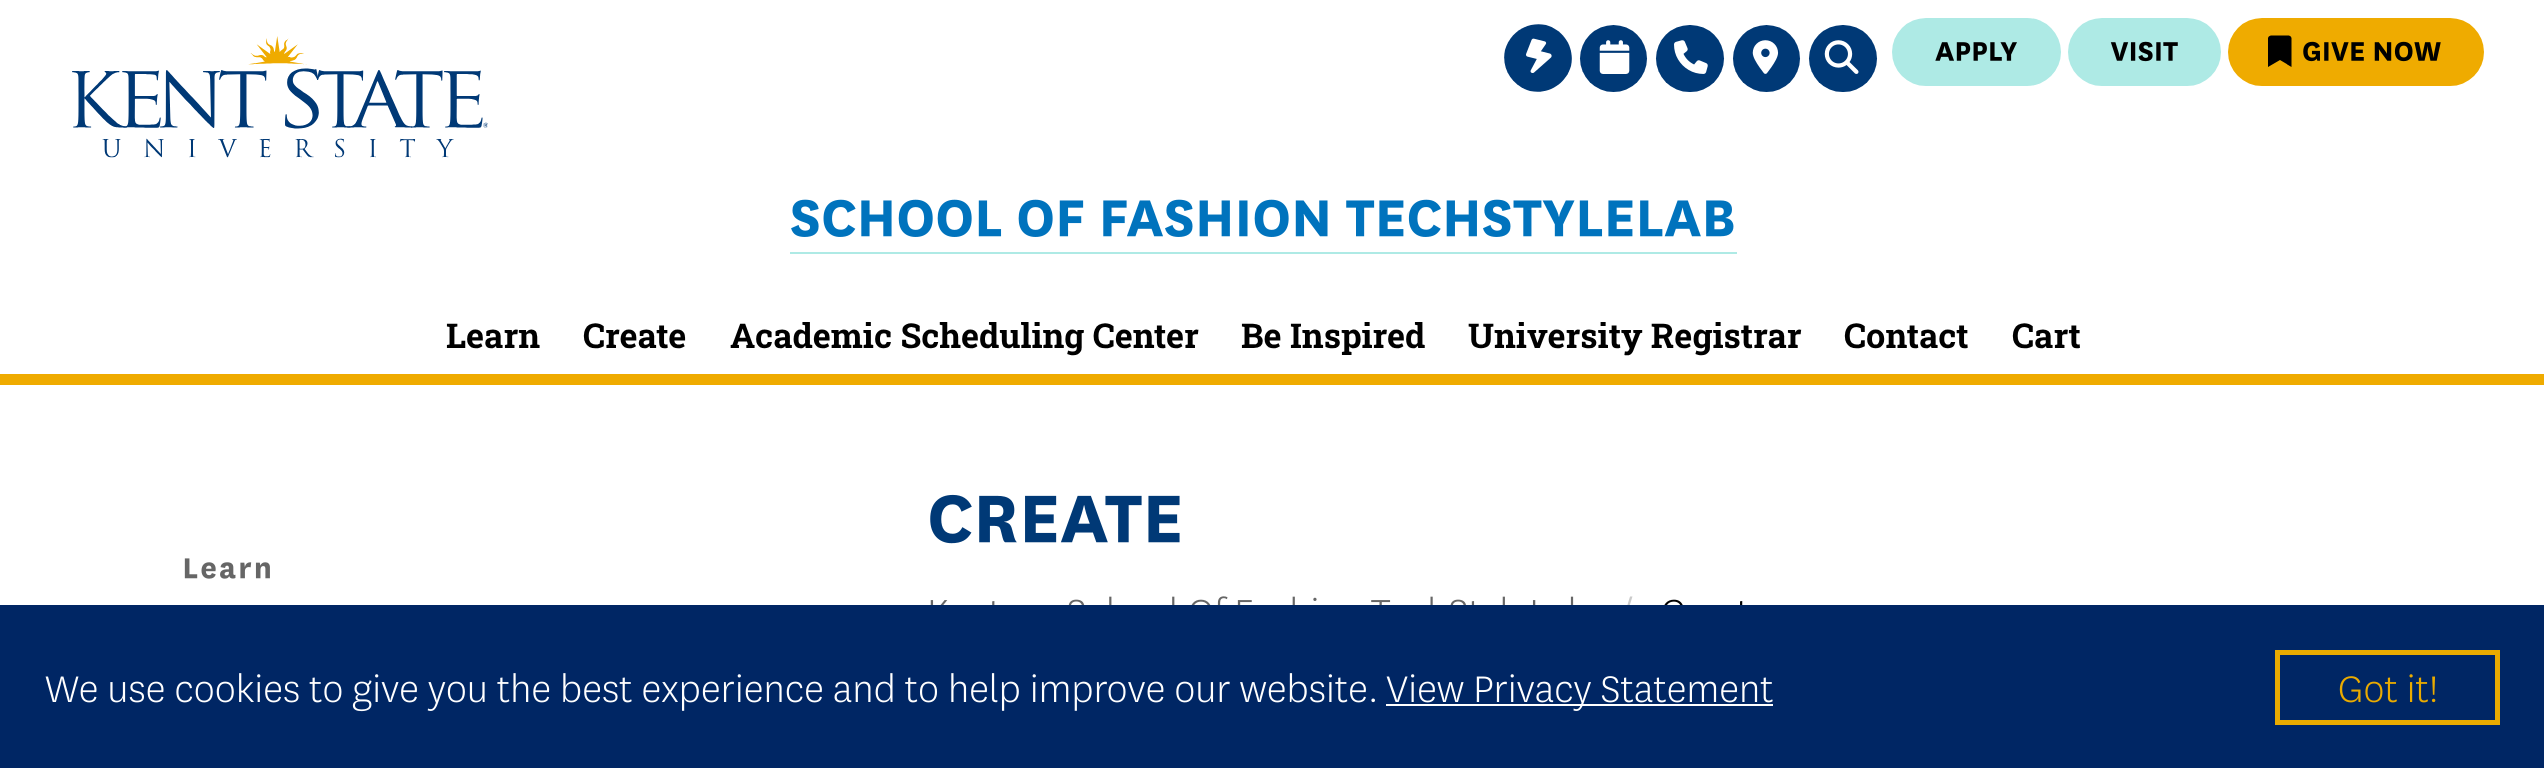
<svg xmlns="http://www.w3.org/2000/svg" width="2544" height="768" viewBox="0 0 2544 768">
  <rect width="100%" height="100%" fill="#ffffff"/>
  <rect x="0" y="374" width="2544" height="11" fill="#efab00"/>
  <image x="72" y="36" width="416" height="122" href="img1.png"/>
  <path d="M1546 25C1564 30 1575 48 1571 66C1566 84 1548 95 1530 91C1512 86 1501 68 1505 50C1510 32 1528 21 1546 25Z" fill="#003976"/>
  <image x="1526" y="38" width="26" height="35" href="img2.png"/>
  <circle cx="1613.5" cy="58.5" r="33.5" fill="#003976"/>
  <image x="1599" y="40" width="31" height="34" href="img3.png"/>
  <rect x="1656" y="25" width="68" height="67" rx="33.5" fill="#003976"/>
  <image x="1674" y="40" width="34" height="34" href="img4.png"/>
  <circle cx="1766.5" cy="58.5" r="33.5" fill="#003976"/>
  <image x="1752" y="40" width="27" height="34" href="img5.png"/>
  <rect x="1809" y="25" width="68" height="67" rx="33.5" fill="#003976"/>
  <image x="1824" y="40" width="35" height="34" href="img6.png"/>
  <rect x="1892" y="18" width="169" height="68" rx="34" fill="#aeeae5"/>
  <image x="1935" y="42" width="82" height="19" href="img7.png"/>
  <rect x="2068" y="18" width="153" height="68" rx="34" fill="#aeeae5"/>
  <image x="2110" y="41" width="68" height="21" href="img8.png"/>
  <rect x="2228" y="18" width="256" height="68" rx="34" fill="#efab00"/>
  <path d="M2268 67V38C2268.5 35 2272 35.5 2274 35.5H2285.5C2288 35.5 2291 35 2291.5 38V67L2280 60Z" fill="#000000"/>
  <image x="2303" y="41" width="138" height="21" href="img9.png"/>
  <rect x="790" y="252" width="947" height="2" fill="#aeeae5"/>
  <image x="791" y="199" width="943" height="38" href="img10.png"/>
  <text x="446" y="348" font-family="Roboto Slab" font-size="34.25" font-weight="bold" fill="#000000">Learn</text>
  <text x="583" y="348" font-family="Roboto Slab" font-size="34.25" font-weight="bold" fill="#000000">Create</text>
  <text x="730" y="348" font-family="Roboto Slab" font-size="34.25" font-weight="bold" fill="#000000">Academic Scheduling Center</text>
  <text x="1241" y="348" font-family="Roboto Slab" font-size="34.25" font-weight="bold" fill="#000000">Be Inspired</text>
  <text x="1468" y="348" font-family="Roboto Slab" font-size="34.25" font-weight="bold" fill="#000000">University Registrar</text>
  <text x="1844" y="348" font-family="Roboto Slab" font-size="34.25" font-weight="bold" fill="#000000">Contact</text>
  <text x="2012" y="348" font-family="Roboto Slab" font-size="34.25" font-weight="bold" fill="#000000">Cart</text>
  <image x="184" y="558" width="86" height="21" href="img11.png"/>
  <image x="930" y="494" width="250" height="50" href="img12.png"/>
  <image x="930" y="600" width="65" height="5" href="img13.png"/>
  <image x="1068" y="596" width="506" height="9" href="img14.png"/>
  <path d="M1630 596.5H1632.5L1620.5 634.5H1618.5Z" fill="#cacaca"/>
  <image x="1664" y="599" width="79" height="6" href="img15.png"/>
  <rect x="0" y="605" width="2544" height="163" fill="#002664"/>
  <image x="45" y="673" width="1330" height="39" href="img16.png"/>
  <rect x="1386" y="704" width="387" height="2" fill="#ffffff"/>
  <image x="1386" y="674" width="387" height="37" href="img17.png"/>
  <rect x="2277.5" y="652.5" width="220" height="70" fill="none" stroke="#eaab00" stroke-width="5"/>
  <image x="2339" y="674" width="97" height="29" href="img18.png"/>
</svg>
